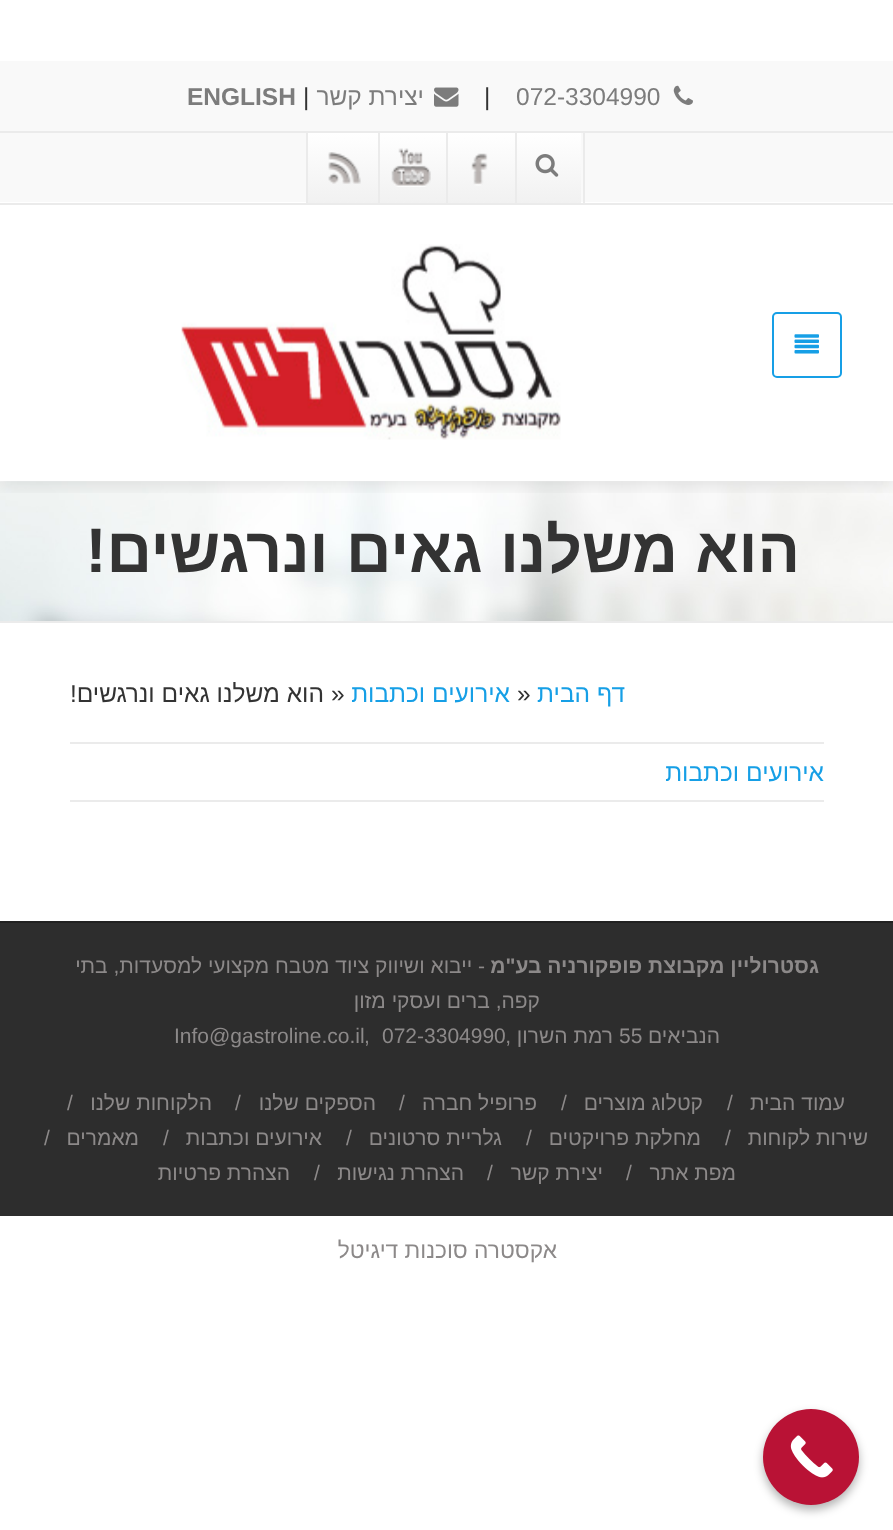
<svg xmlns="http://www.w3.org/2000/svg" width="893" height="1530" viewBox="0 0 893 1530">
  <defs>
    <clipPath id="clip1"><rect x="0" y="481" width="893" height="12"/></clipPath>
    <filter id="blur1" x="-50%" y="-200%" width="200%" height="500%"><feGaussianBlur stdDeviation="9"/></filter>
    <linearGradient id="g1" gradientUnits="userSpaceOnUse" x1="548" y1="133" x2="548" y2="203"><stop offset="0" stop-color="#ffffff"/><stop offset="1" stop-color="#f1f1f1"/></linearGradient>
    <linearGradient id="g2" gradientUnits="userSpaceOnUse" x1="480" y1="133" x2="480" y2="203"><stop offset="0" stop-color="#ffffff"/><stop offset="1" stop-color="#f1f1f1"/></linearGradient>
    <linearGradient id="g3" gradientUnits="userSpaceOnUse" x1="411" y1="133" x2="411" y2="203"><stop offset="0" stop-color="#ffffff"/><stop offset="1" stop-color="#f1f1f1"/></linearGradient>
    <linearGradient id="g4" gradientUnits="userSpaceOnUse" x1="343" y1="133" x2="343" y2="203"><stop offset="0" stop-color="#ffffff"/><stop offset="1" stop-color="#f1f1f1"/></linearGradient>
    <filter id="blur2" x="-50%" y="-200%" width="200%" height="500%"><feGaussianBlur stdDeviation="5"/></filter>
  </defs>
  <rect width="100%" height="100%" fill="#ffffff"/>
  <image x="0" y="481" width="893" height="140" href="img9.png"/>
  <g clip-path="url(#clip1)">
    <rect x="0" y="208" width="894" height="277" fill="#000000" fill-opacity="0.1" filter="url(#blur1)"/>
  </g>
  <rect x="0" y="61" width="893" height="141" fill="#f9f9f9"/>
  <rect x="0" y="203" width="893" height="2" fill="#ebebeb"/>
  <rect x="0" y="131" width="893" height="2" fill="#ebebeb"/>
  <image x="673" y="85" width="20" height="20" href="img1.png"/>
  <text x="516" y="105" font-family="Liberation Sans" font-size="24.5" fill="#7c7c7c">072-3304990</text>
  <text x="484" y="105" font-family="Liberation Sans" font-size="24.5" fill="#333333">|</text>
  <image x="434" y="87" width="25" height="20" href="img2.png"/>
  <text x="424" y="105" font-family="Liberation Sans" font-size="24.5" direction="rtl" fill="#7c7c7c">יצירת קשר</text>
  <text x="303" y="105" font-family="Liberation Sans" font-size="24.5" fill="#333333">|</text>
  <text x="187" y="105" font-family="Liberation Sans" font-size="24.5" font-weight="bold" fill="#7c7c7c">ENGLISH</text>
  <rect x="583" y="133" width="2" height="70" fill="#ebebeb"/>
  <rect x="517" y="133" width="64" height="70" fill="url(#g1)"/>
  <image x="535" y="154" width="24" height="23" href="img3.png"/>
  <rect x="448" y="133" width="67" height="70" fill="url(#g2)"/>
  <rect x="515" y="133" width="2" height="70" fill="#ebebeb"/>
  <image x="471" y="153" width="17" height="33" href="img4.png"/>
  <rect x="380" y="133" width="66" height="70" fill="url(#g3)"/>
  <rect x="446" y="133" width="2" height="70" fill="#ebebeb"/>
  <image x="391" y="148" width="40" height="39" href="img5.png"/>
  <rect x="308" y="133" width="70" height="70" fill="url(#g4)"/>
  <rect x="378" y="133" width="2" height="70" fill="#ebebeb"/>
  <rect x="306" y="133" width="2" height="70" fill="#ebebeb"/>
  <image x="328" y="152" width="33" height="32" href="img6.png"/>
  <rect x="773" y="313" width="68" height="64" rx="4" fill="none" stroke="#169fe6" stroke-width="2"/>
  <image x="794" y="334" width="25" height="20" href="img7.png"/>
  <image x="181" y="244" width="380" height="196" href="img8.png"/>
  <rect x="0" y="621" width="893" height="2" fill="#ebebeb"/>
  <text x="800" y="572" font-family="Liberation Sans" font-size="63" font-weight="bold" direction="rtl" fill="#333333">הוא משלנו גאים ונרגשים!</text>
  <text x="625" y="702" font-family="Liberation Sans" font-size="24.5" direction="rtl" fill="#169fe6">דף הבית</text>
  <text x="517" y="702" font-family="Liberation Sans" font-size="24.5" fill="#333333">»</text>
  <text x="510" y="702" font-family="Liberation Sans" font-size="24.5" direction="rtl" fill="#169fe6">אירועים וכתבות</text>
  <text x="331" y="702" font-family="Liberation Sans" font-size="24.5" fill="#333333">»</text>
  <text x="324" y="702" font-family="Liberation Sans" font-size="24.5" direction="rtl" fill="#333333">הוא משלנו גאים ונרגשים!</text>
  <rect x="70" y="742" width="754" height="2" fill="#ebebeb"/>
  <rect x="70" y="800" width="754" height="2" fill="#ebebeb"/>
  <text x="824" y="781" font-family="Liberation Sans" font-size="24.5" direction="rtl" fill="#169fe6">אירועים וכתבות</text>
  <rect x="0" y="923" width="893" height="293" fill="#2d2d2d"/>
  <rect x="0" y="921" width="893" height="2" fill="#212121"/>
  <text x="819" y="973" font-family="Liberation Sans" font-size="21" font-weight="bold" direction="rtl" fill="#8c8989">גסטרוליין מקבוצת פופקורניה בע"מ</text>
  <text x="485" y="973" font-family="Liberation Sans" font-size="21" direction="rtl" fill="#8c8989">- ייבוא ושיווק ציוד מטבח מקצועי למסעדות, בתי</text>
  <text x="540" y="1008" font-family="Liberation Sans" font-size="21" direction="rtl" fill="#8c8989">קפה, ברים ועסקי מזון</text>
  <text x="720" y="1043" font-family="Liberation Sans" font-size="21" direction="rtl" fill="#8c8989">הנביאים</text>
  <text x="619" y="1043" font-family="Liberation Sans" font-size="21" fill="#8c8989">55</text>
  <text x="613" y="1043" font-family="Liberation Sans" font-size="21" direction="rtl" fill="#8c8989">רמת השרון ,</text>
  <text x="382" y="1043" font-family="Liberation Sans" font-size="21" fill="#8c8989">072-3304990</text>
  <text x="364" y="1043" font-family="Liberation Sans" font-size="21" fill="#8c8989">,</text>
  <text x="174" y="1043" font-family="Liberation Sans" font-size="21" fill="#8c8989">Info@gastroline.co.il</text>
  <text x="845" y="1110" font-family="Liberation Sans" font-size="21" direction="rtl" fill="#8c8989">עמוד הבית</text>
  <text x="727" y="1110" font-family="Liberation Sans" font-size="21" fill="#8c8989">/</text>
  <text x="703" y="1110" font-family="Liberation Sans" font-size="21" direction="rtl" fill="#8c8989">קטלוג מוצרים</text>
  <text x="561" y="1110" font-family="Liberation Sans" font-size="21" fill="#8c8989">/</text>
  <text x="537" y="1110" font-family="Liberation Sans" font-size="21" direction="rtl" fill="#8c8989">פרופיל חברה</text>
  <text x="399" y="1110" font-family="Liberation Sans" font-size="21" fill="#8c8989">/</text>
  <text x="376" y="1110" font-family="Liberation Sans" font-size="21" direction="rtl" fill="#8c8989">הספקים שלנו</text>
  <text x="235" y="1110" font-family="Liberation Sans" font-size="21" fill="#8c8989">/</text>
  <text x="212" y="1110" font-family="Liberation Sans" font-size="21" direction="rtl" fill="#8c8989">הלקוחות שלנו</text>
  <text x="67" y="1110" font-family="Liberation Sans" font-size="21" fill="#8c8989">/</text>
  <text x="868" y="1145" font-family="Liberation Sans" font-size="21" direction="rtl" fill="#8c8989">שירות לקוחות</text>
  <text x="725" y="1145" font-family="Liberation Sans" font-size="21" fill="#8c8989">/</text>
  <text x="701" y="1145" font-family="Liberation Sans" font-size="21" direction="rtl" fill="#8c8989">מחלקת פרויקטים</text>
  <text x="526" y="1145" font-family="Liberation Sans" font-size="21" fill="#8c8989">/</text>
  <text x="502" y="1145" font-family="Liberation Sans" font-size="21" direction="rtl" fill="#8c8989">גלריית סרטונים</text>
  <text x="346" y="1145" font-family="Liberation Sans" font-size="21" fill="#8c8989">/</text>
  <text x="322" y="1145" font-family="Liberation Sans" font-size="21" direction="rtl" fill="#8c8989">אירועים וכתבות</text>
  <text x="163" y="1145" font-family="Liberation Sans" font-size="21" fill="#8c8989">/</text>
  <text x="139" y="1145" font-family="Liberation Sans" font-size="21" direction="rtl" fill="#8c8989">מאמרים</text>
  <text x="44" y="1145" font-family="Liberation Sans" font-size="21" fill="#8c8989">/</text>
  <text x="736" y="1180" font-family="Liberation Sans" font-size="21" direction="rtl" fill="#8c8989">מפת אתר</text>
  <text x="626" y="1180" font-family="Liberation Sans" font-size="21" fill="#8c8989">/</text>
  <text x="603" y="1180" font-family="Liberation Sans" font-size="21" direction="rtl" fill="#8c8989">יצירת קשר</text>
  <text x="487" y="1180" font-family="Liberation Sans" font-size="21" fill="#8c8989">/</text>
  <text x="464" y="1180" font-family="Liberation Sans" font-size="21" direction="rtl" fill="#8c8989">הצהרת נגישות</text>
  <text x="314" y="1180" font-family="Liberation Sans" font-size="21" fill="#8c8989">/</text>
  <text x="290" y="1180" font-family="Liberation Sans" font-size="21" direction="rtl" fill="#8c8989">הצהרת פרטיות</text>
  <text x="557" y="1258" font-family="Liberation Sans" font-size="22.75" direction="rtl" fill="#8c8989">אקסטרה סוכנות דיגיטל</text>
  <rect x="763" y="1414" width="96" height="96" rx="48" fill="#000000" fill-opacity="0.3" filter="url(#blur2)"/>
  <circle cx="811" cy="1457" r="48" fill="#b91235"/>
  <image x="790" y="1435" width="43" height="43" href="img10.png"/>
</svg>
